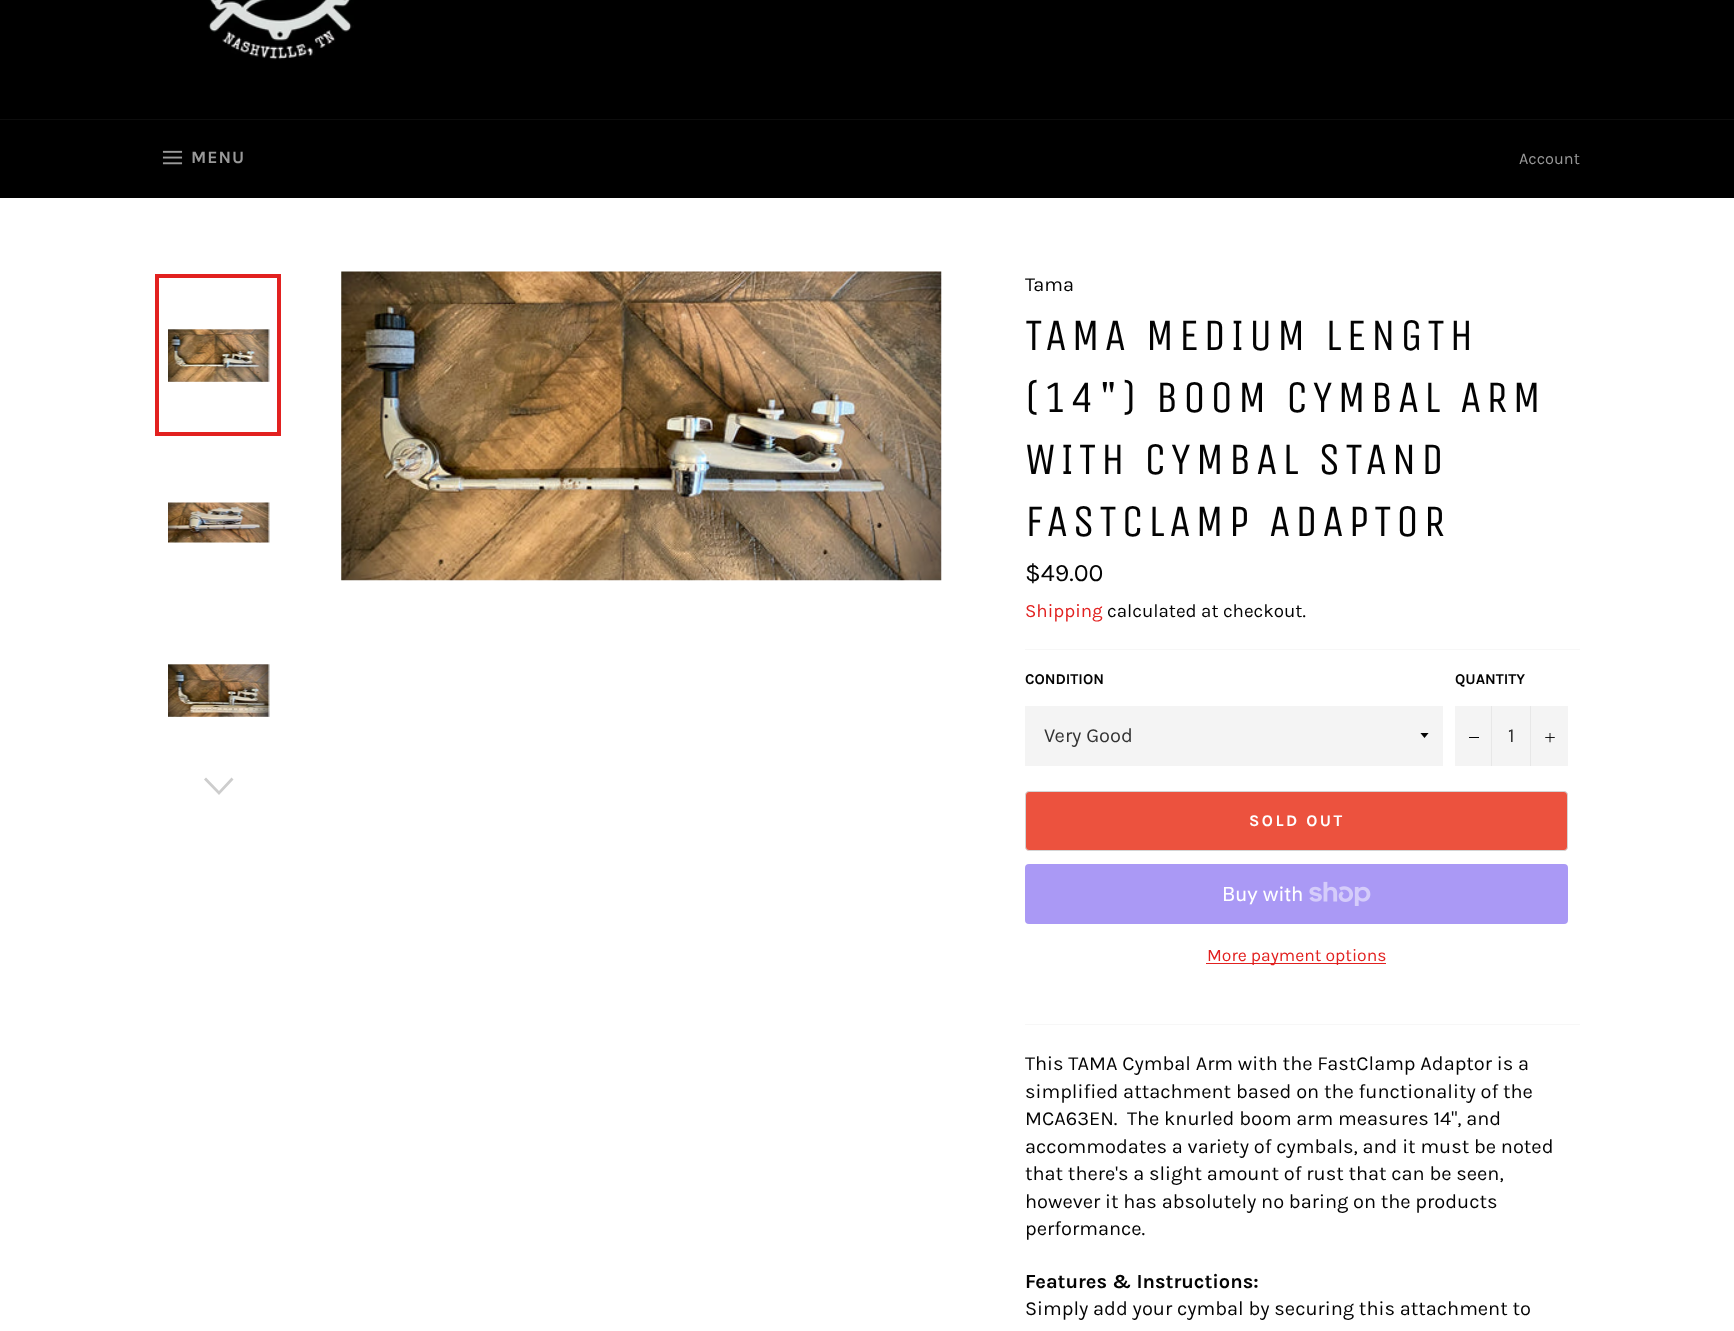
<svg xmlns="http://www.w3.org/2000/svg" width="1734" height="1331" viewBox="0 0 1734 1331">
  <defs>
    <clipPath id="clip1"><rect x="1420" y="733" width="10" height="6"/></clipPath>
  </defs>
  <rect width="100%" height="100%" fill="#000000"/>
  <image x="208" y="0" width="146" height="60" href="img1.png"/>
  <rect x="0" y="119" width="1734" height="1" fill="#0d0d0d"/>
  <image x="162" y="150" width="21" height="15" href="img2.png"/>
  <text x="191" y="163" font-family="Karla" font-size="17.5" font-weight="bold" letter-spacing="1" fill="#999999">MENU</text>
  <text x="1519" y="164" font-family="Karla" font-size="16.25" fill="#999999">Account</text>
  <rect x="0" y="198" width="1734" height="1133" fill="#ffffff"/>
  <image x="168" y="329" width="102" height="53" href="img3.png"/>
  <rect x="157" y="276" width="122" height="158" fill="none" stroke="#e22120" stroke-width="4"/>
  <image x="168" y="502" width="102" height="41" href="img4.png"/>
  <image x="168" y="664" width="102" height="53" href="img5.png"/>
  <path d="M231.5 777.5L233.5 779.5L219 795L204 779.5L206 777.5L219 791Z" fill="#cdcdcd"/>
  <image x="341" y="271" width="601" height="310" href="img6.png"/>
  <text x="1025" y="291" font-family="Karla" font-size="20" fill="#030303">Tama</text>
  <text x="1025" y="350" font-family="Unica One" font-size="45" letter-spacing="4.5" fill="#030303">TAMA MEDIUM LENGTH</text>
  <text x="1025" y="412" font-family="Unica One" font-size="45" letter-spacing="4.5" fill="#030303">(14") BOOM CYMBAL ARM</text>
  <text x="1025" y="474" font-family="Unica One" font-size="45" letter-spacing="4.5" fill="#030303">WITH CYMBAL STAND</text>
  <text x="1025" y="536" font-family="Unica One" font-size="45" letter-spacing="4.5" fill="#030303">FASTCLAMP ADAPTOR</text>
  <text x="1025" y="581" font-family="Karla" font-size="25" fill="#030303">$49.00</text>
  <text x="1025" y="617" font-family="Karla" font-size="18.75" fill="#e22120">Shipping</text>
  <text x="1107" y="617" font-family="Karla" font-size="18.75" fill="#030303">calculated at checkout.</text>
  <rect x="1025" y="649" width="555" height="1" fill="#f7f7f7"/>
  <text x="1025" y="684" font-family="Karla" font-size="15" font-weight="bold" fill="#030303">CONDITION</text>
  <rect x="1025" y="706" width="418" height="60" fill="#f4f4f4"/>
  <g clip-path="url(#clip1)">
    <path d="M1420 732.5L1424.5 738L1429 732.5Z" fill="#030303"/>
  </g>
  <text x="1044" y="742" font-family="Karla" font-size="20" fill="#333333">Very Good</text>
  <text x="1455" y="684" font-family="Karla" font-size="15" font-weight="bold" fill="#030303">QUANTITY</text>
  <rect x="1455" y="706" width="113" height="60" fill="#f4f4f4"/>
  <rect x="1491" y="706" width="1" height="60" fill="#e7e7e7"/>
  <rect x="1469" y="737" width="10" height="1" fill="#030303"/>
  <text x="1508" y="742" font-family="Karla" font-size="20" fill="#333333">1</text>
  <rect x="1530" y="706" width="1" height="60" fill="#e7e7e7"/>
  <image x="1545" y="733" width="10" height="10" href="img7.png"/>
  <rect x="1025.5" y="791.5" width="542" height="59" rx="3.5" fill="#ec523e" stroke="#d5d5d5"/>
  <text x="1249" y="826" font-family="Karla" font-size="16.25" font-weight="bold" letter-spacing="2.5" fill="#ffffff">SOLD OUT</text>
  <rect x="1025" y="864" width="543" height="60" rx="4" fill="#aa99f5"/>
  <text x="1222" y="901" font-family="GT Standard" font-size="20" fill="#ffffff">Buy with</text>
  <image x="1309" y="881" width="62" height="25" href="img8.png"/>
  <rect x="1206" y="963" width="180" height="1" fill="#e22120"/>
  <text x="1207" y="961" font-family="Karla" font-size="17.5" fill="#e22120">More payment options</text>
  <rect x="1025" y="1024" width="555" height="1" fill="#f7f7f7"/>
  <text x="1025" y="1070" font-family="Karla" font-size="20" fill="#030303">This TAMA Cymbal Arm with the FastClamp Adaptor is a</text>
  <text x="1025" y="1098" font-family="Karla" font-size="20" fill="#030303">simplified attachment based on the functionality of the</text>
  <text x="1025" y="1125" font-family="Karla" font-size="20" fill="#030303" xml:space="preserve">MCA63EN.  The knurled boom arm measures 14", and</text>
  <text x="1025" y="1153" font-family="Karla" font-size="20" fill="#030303">accommodates a variety of cymbals, and it must be noted</text>
  <text x="1025" y="1180" font-family="Karla" font-size="20" fill="#030303">that there's a slight amount of rust that can be seen,</text>
  <text x="1025" y="1208" font-family="Karla" font-size="20" fill="#030303">however it has absolutely no baring on the products</text>
  <text x="1025" y="1235" font-family="Karla" font-size="20" fill="#030303">performance.</text>
  <text x="1025" y="1288" font-family="Karla" font-size="20" font-weight="bold" fill="#030303">Features &amp; Instructions:</text>
  <text x="1025" y="1315" font-family="Karla" font-size="20" fill="#030303">Simply add your cymbal by securing this attachment to</text>
</svg>
